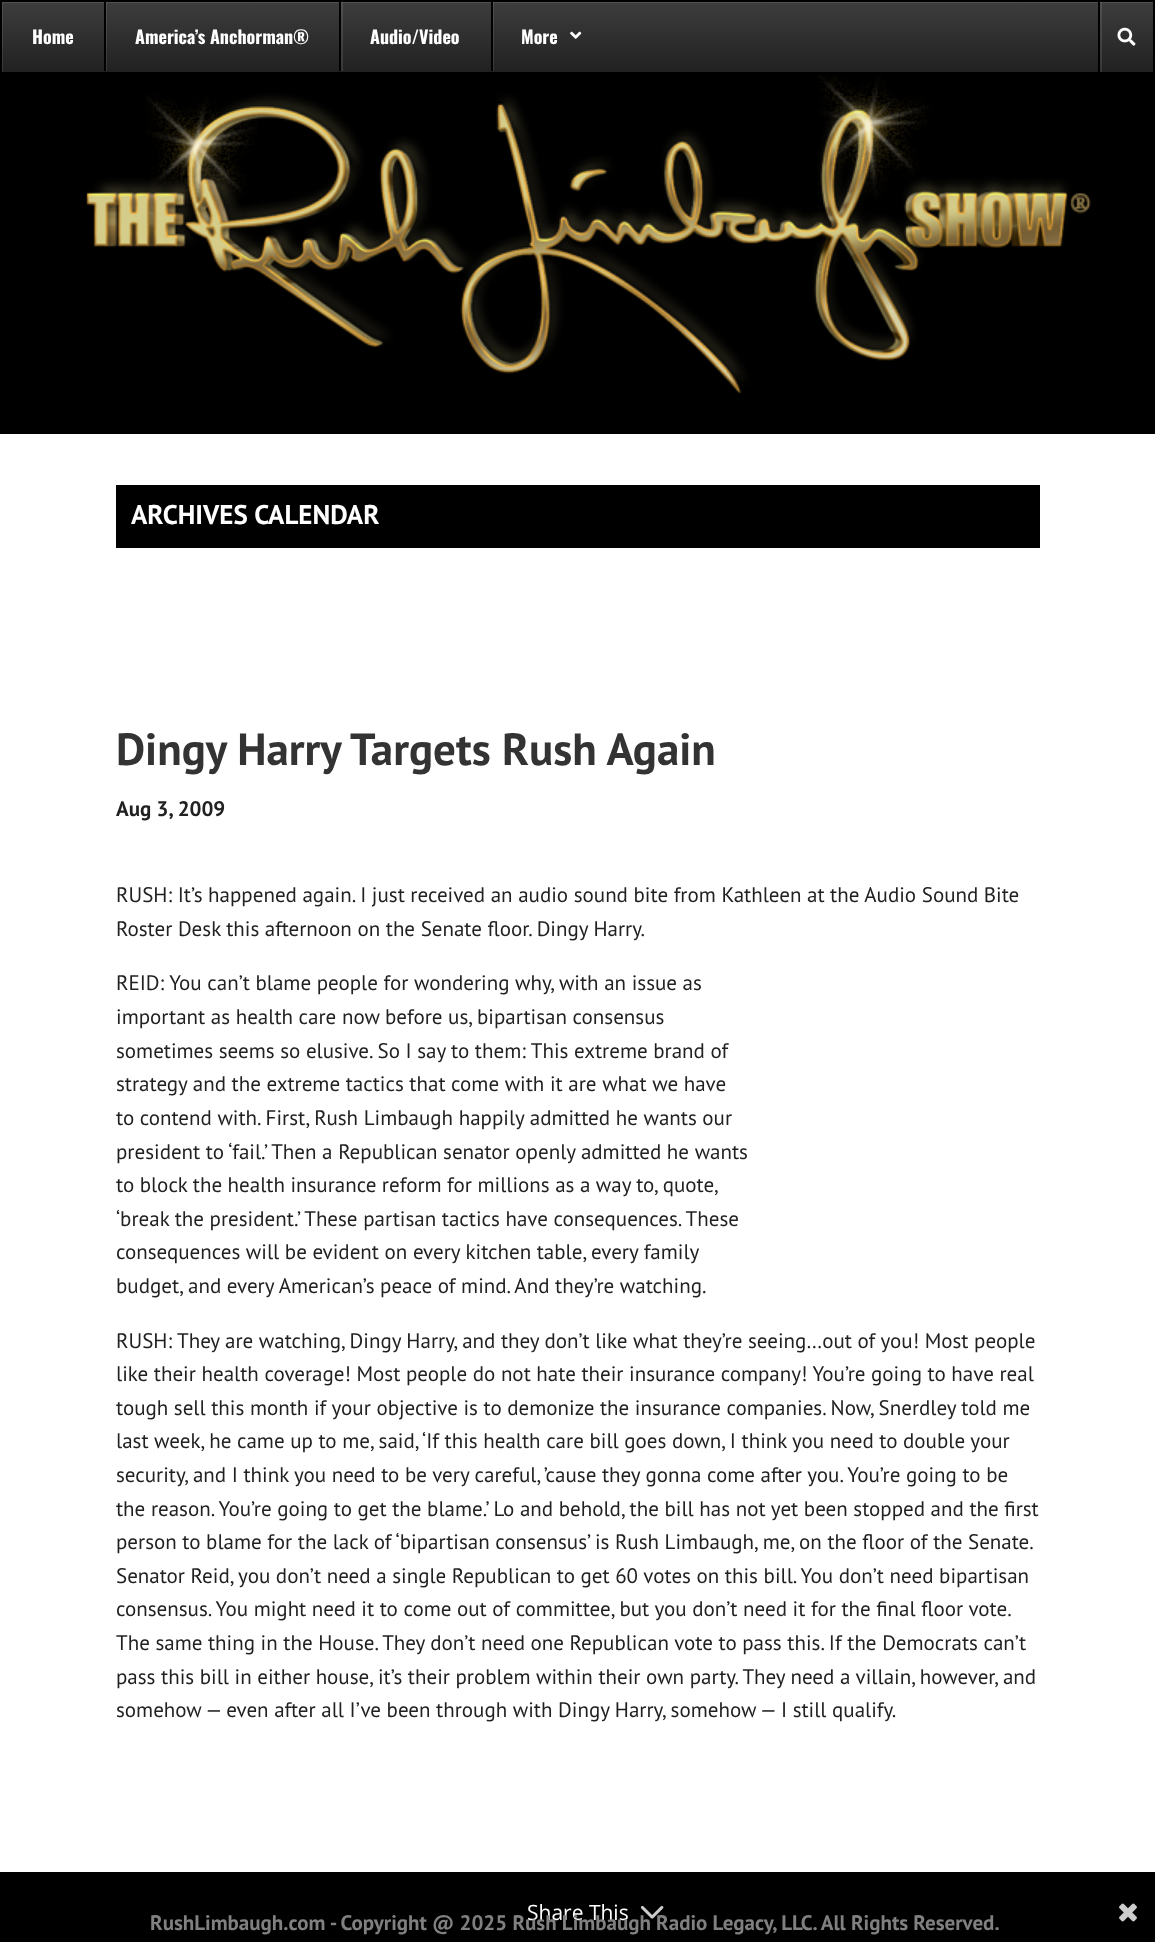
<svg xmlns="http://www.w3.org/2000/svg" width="1155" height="1942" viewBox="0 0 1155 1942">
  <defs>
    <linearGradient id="g1" gradientUnits="userSpaceOnUse" x1="578" y1="1.5" x2="578" y2="72"><stop offset="0" stop-color="#3d3d3d"/><stop offset="1" stop-color="#212121"/></linearGradient>
    <clipPath id="clip1"><rect x="2" y="2" width="1152" height="70"/></clipPath>
  </defs>
  <rect width="100%" height="100%" fill="#ffffff"/>
  <rect x="2" y="2" width="1151" height="70" fill="url(#g1)"/>
  <g clip-path="url(#clip1)">
    <path d="M-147-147H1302V220H-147ZM3 3H1155V74H3Z" fill="#ffffff" fill-opacity="0.1" fill-rule="evenodd"/>
  </g>
  <rect x="1" y="1" width="1153" height="72" fill="none" stroke="#000000" stroke-width="2"/>
  <text x="32" y="44" font-family="Oswald" font-size="18" font-weight="bold" fill="#ffffff">Home</text>
  <rect x="106" y="2" width="1" height="69" fill="#ffffff" fill-opacity="0.1"/>
  <rect x="104" y="2" width="2" height="69" fill="#000000"/>
  <text x="135" y="44" font-family="Oswald" font-size="18" font-weight="bold" fill="#ffffff">America’s Anchorman®</text>
  <rect x="341" y="2" width="2" height="69" fill="#ffffff" fill-opacity="0.1"/>
  <rect x="339" y="2" width="2" height="69" fill="#000000"/>
  <text x="370" y="44" font-family="Oswald" font-size="18" font-weight="bold" fill="#ffffff">Audio/Video</text>
  <rect x="493" y="2" width="1" height="69" fill="#ffffff" fill-opacity="0.1"/>
  <rect x="491" y="2" width="2" height="69" fill="#000000"/>
  <text x="521" y="44" font-family="Oswald" font-size="18" font-weight="bold" fill="#ffffff">More</text>
  <image x="570" y="31" width="12" height="8" href="img1.png"/>
  <rect x="1100" y="2" width="2" height="70" fill="#ffffff" fill-opacity="0.1"/>
  <rect x="1098" y="2" width="2" height="70" fill="#000000"/>
  <image x="1117" y="27" width="19" height="19" href="img2.png"/>
  <rect x="0" y="74" width="1155" height="360" fill="#000000"/>
  <image x="86" y="75" width="1005" height="319" href="img3.png"/>
  <rect x="116" y="485" width="924" height="63" fill="#000000"/>
  <text x="131" y="524" font-family="PT Sans" font-size="27" font-weight="bold" fill="#ffffff">ARCHIVES CALENDAR</text>
  <text x="116" y="765" font-family="PT Sans" font-size="45" font-weight="bold" fill="#333333">Dingy Harry Targets Rush Again</text>
  <text x="116" y="816" font-family="PT Sans" font-size="21" font-weight="bold" fill="#212121">Aug 3, 2009</text>
  <text x="116" y="902" font-family="PT Sans" font-size="21" fill="#212121">RUSH: It’s happened again. I just received an audio sound bite from Kathleen at the Audio Sound Bite</text>
  <text x="116" y="936" font-family="PT Sans" font-size="21" fill="#212121">Roster Desk this afternoon on the Senate floor. Dingy Harry.</text>
  <text x="116" y="990" font-family="PT Sans" font-size="21" fill="#212121">REID: You can’t blame people for wondering why, with an issue as</text>
  <text x="116" y="1024" font-family="PT Sans" font-size="21" fill="#212121">important as health care now before us, bipartisan consensus</text>
  <text x="116" y="1058" font-family="PT Sans" font-size="21" fill="#212121">sometimes seems so elusive. So I say to them: This extreme brand of</text>
  <text x="116" y="1091" font-family="PT Sans" font-size="21" fill="#212121">strategy and the extreme tactics that come with it are what we have</text>
  <text x="116" y="1125" font-family="PT Sans" font-size="21" fill="#212121">to contend with. First, Rush Limbaugh happily admitted he wants our</text>
  <text x="116" y="1159" font-family="PT Sans" font-size="21" fill="#212121">president to ‘fail.’ Then a Republican senator openly admitted he wants</text>
  <text x="116" y="1192" word-spacing="-0.1" font-family="PT Sans" font-size="21" fill="#212121">to block the health insurance reform for millions as a way to, quote,</text>
  <text x="116" y="1226" font-family="PT Sans" font-size="21" fill="#212121">‘break the president.’ These partisan tactics have consequences. These</text>
  <text x="116" y="1259" font-family="PT Sans" font-size="21" fill="#212121">consequences will be evident on every kitchen table, every family</text>
  <text x="116" y="1293" font-family="PT Sans" font-size="21" fill="#212121">budget, and every American’s peace of mind. And they’re watching.</text>
  <text x="116" y="1348" font-family="PT Sans" font-size="21" fill="#212121">RUSH: They are watching, Dingy Harry, and they don’t like what they’re seeing…out of you! Most people</text>
  <text x="116" y="1381" font-family="PT Sans" font-size="21" fill="#212121">like their health coverage! Most people do not hate their insurance company! You’re going to have real</text>
  <text x="116" y="1415" font-family="PT Sans" font-size="21" fill="#212121">tough sell this month if your objective is to demonize the insurance companies. Now, Snerdley told me</text>
  <text x="116" y="1448" font-family="PT Sans" font-size="21" fill="#212121">last week, he came up to me, said, ‘If this health care bill goes down, I think you need to double your</text>
  <text x="116" y="1482" font-family="PT Sans" font-size="21" fill="#212121">security, and I think you need to be very careful, ’cause they gonna come after you. You’re going to be</text>
  <text x="116" y="1516" font-family="PT Sans" font-size="21" fill="#212121">the reason. You’re going to get the blame.’ Lo and behold, the bill has not yet been stopped and the first</text>
  <text x="116" y="1549" font-family="PT Sans" font-size="21" fill="#212121">person to blame for the lack of ‘bipartisan consensus’ is Rush Limbaugh, me, on the floor of the Senate.</text>
  <text x="116" y="1583" font-family="PT Sans" font-size="21" fill="#212121">Senator Reid, you don’t need a single Republican to get 60 votes on this bill. You don’t need bipartisan</text>
  <text x="116" y="1616" font-family="PT Sans" font-size="21" fill="#212121">consensus. You might need it to come out of committee, but you don’t need it for the final floor vote.</text>
  <text x="116" y="1650" font-family="PT Sans" font-size="21" fill="#212121">The same thing in the House. They don’t need one Republican vote to pass this. If the Democrats can’t</text>
  <text x="116" y="1684" font-family="PT Sans" font-size="21" fill="#212121">pass this bill in either house, it’s their problem within their own party. They need a villain, however, and</text>
  <text x="116" y="1717" font-family="PT Sans" font-size="21" fill="#212121">somehow — even after all I’ve been through with Dingy Harry, somehow — I still qualify.</text>
  <rect x="0" y="1872" width="1155" height="70" fill="#000000"/>
  <text x="527" y="1920" font-family="Open Sans" font-size="21" fill="#ffffff">Share This</text>
  <text x="150" y="1930" word-spacing="-0.1" font-family="PT Sans" font-size="21" font-weight="bold" fill="#808080">RushLimbaugh.com - Copyright @ 2025 Rush Limbaugh Radio Legacy, LLC. All Rights Reserved.</text>
  <image x="640" y="1906" width="24" height="13" href="img4.png"/>
  <image x="1119" y="1903" width="18" height="19" href="img5.png"/>
</svg>
